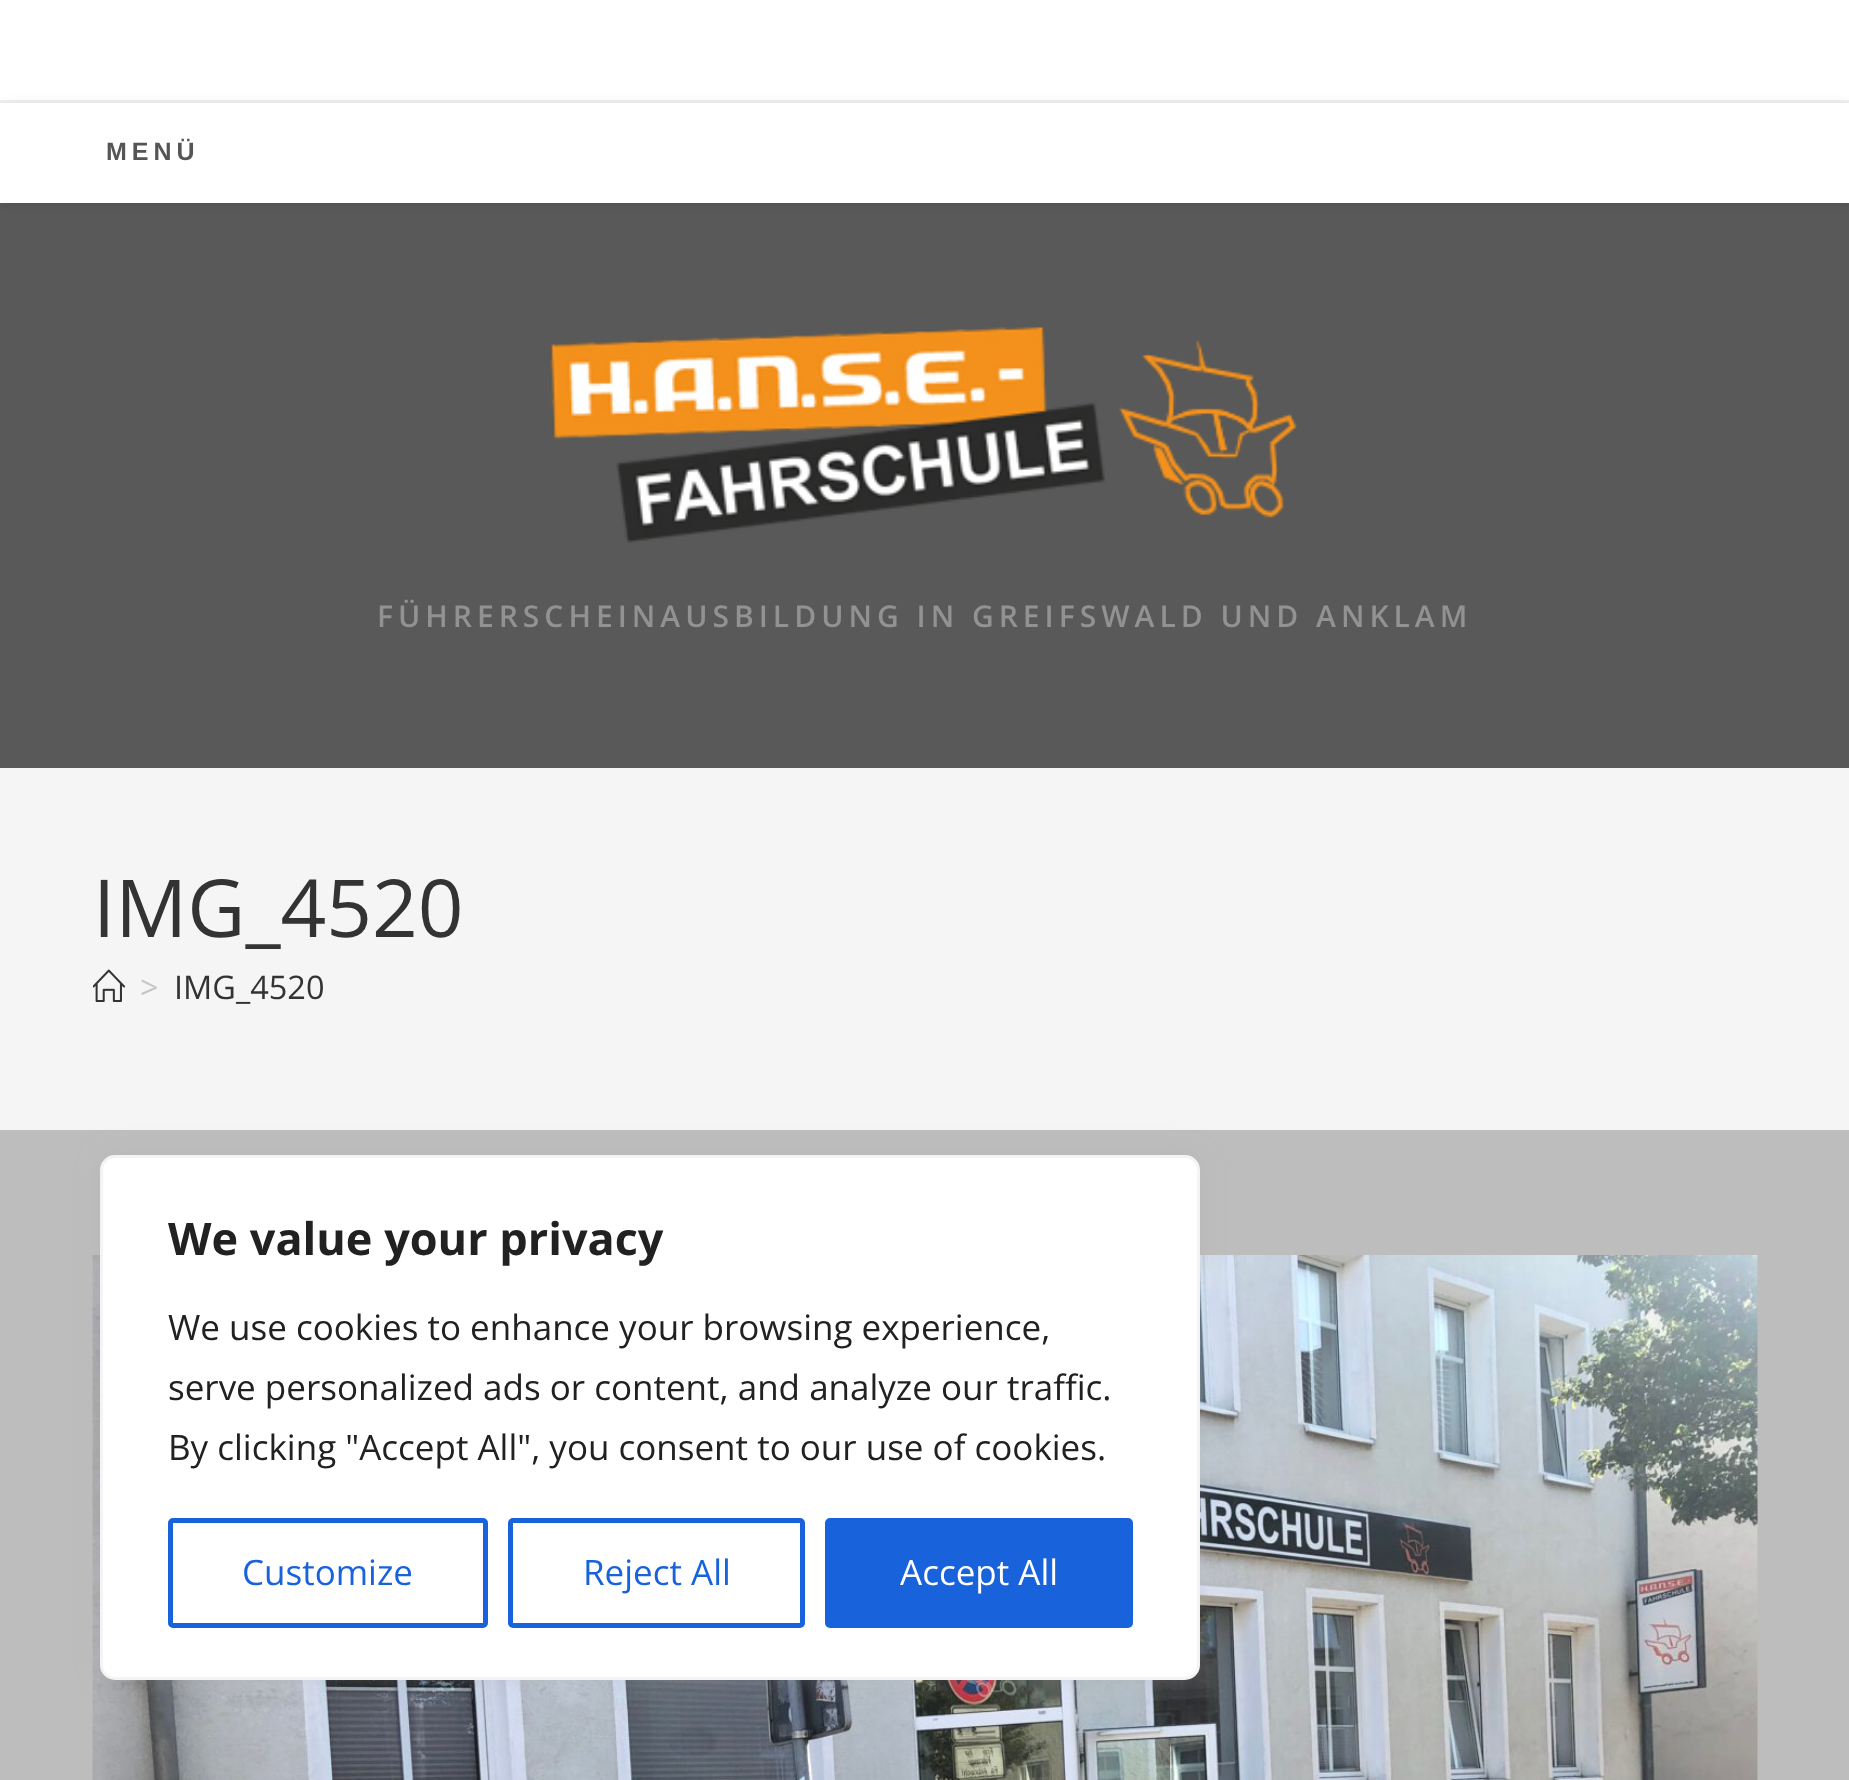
<svg xmlns="http://www.w3.org/2000/svg" width="1849" height="1780" viewBox="0 0 1849 1780">
  <defs>
    <filter id="blur1" x="-50%" y="-200%" width="200%" height="500%"><feGaussianBlur stdDeviation="6"/></filter>
    <filter id="blur2" x="-50%" y="-200%" width="200%" height="500%"><feGaussianBlur stdDeviation="12.5"/></filter>
  </defs>
  <rect width="100%" height="100%" fill="#bdbdbd"/>
  <rect x="0" y="0" width="1849" height="100" fill="#ffffff"/>
  <rect x="0" y="100" width="1849" height="3" fill="#f1f1f1"/>
  <rect x="0" y="203" width="1849" height="565" fill="#595959"/>
  <rect x="0" y="105" width="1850" height="100" fill="#000000" fill-opacity="0.1" filter="url(#blur1)"/>
  <rect x="0" y="103" width="1849" height="100" fill="#ffffff"/>
  <text x="106" y="160" font-family="Liberation Sans" font-size="25" font-weight="bold" letter-spacing="5" fill="#555555">MENÜ</text>
  <image x="550" y="327" width="747" height="216" href="img1.png"/>
  <text x="377" y="627" font-family="Open Sans" font-size="30" font-weight="600" letter-spacing="5" fill="#929292">FÜHRERSCHEINAUSBILDUNG IN GREIFSWALD UND ANKLAM</text>
  <rect x="0" y="768" width="1849" height="362" fill="#f5f5f5"/>
  <text x="93" y="937" font-family="Open Sans" font-size="80" fill="#333333">IMG_4520</text>
  <image x="93" y="969" width="33" height="33" href="img2.png"/>
  <text x="140" y="999" font-family="Open Sans" font-size="32.5" fill="#c6c6c6">&gt;</text>
  <text x="174" y="999" font-family="Open Sans" font-size="32.5" fill="#333333">IMG_4520</text>
  <image x="92" y="1255" width="1666" height="525" href="img3.png"/>
  <rect x="100" y="1153" width="1100" height="525" rx="15" fill="#acabab" fill-opacity="0.3" filter="url(#blur2)"/>
  <rect x="101.5" y="1156.5" width="1097" height="522" rx="13.5" fill="#ffffff" stroke="#f4f4f4" stroke-width="3"/>
  <text x="168" y="1255" font-family="Open Sans" font-size="45" font-weight="bold" fill="#212121">We value your privacy</text>
  <text x="168" y="1340" font-family="Open Sans" font-size="35" fill="#212121">We use cookies to enhance your browsing experience,</text>
  <text x="168" y="1400" font-family="Open Sans" font-size="35" fill="#212121">serve personalized ads or content, and analyze our traffic.</text>
  <text x="168" y="1460" font-family="Open Sans" font-size="35" fill="#212121">By clicking "Accept All", you consent to our use of cookies.</text>
  <rect x="170.5" y="1520.5" width="315" height="105" rx="2.5" fill="none" stroke="#1863dc" stroke-width="5"/>
  <text x="242" y="1585" font-family="Open Sans" font-size="35" fill="#1863dc">Customize</text>
  <rect x="510.5" y="1520.5" width="292" height="105" rx="2.5" fill="none" stroke="#1863dc" stroke-width="5"/>
  <text x="583" y="1585" font-family="Open Sans" font-size="35" fill="#1863dc">Reject All</text>
  <rect x="827.5" y="1520.5" width="303" height="105" rx="2.5" fill="#1863dc" stroke="#1863dc" stroke-width="5"/>
  <text x="900" y="1585" font-family="Open Sans" font-size="35" fill="#ffffff">Accept All</text>
</svg>
